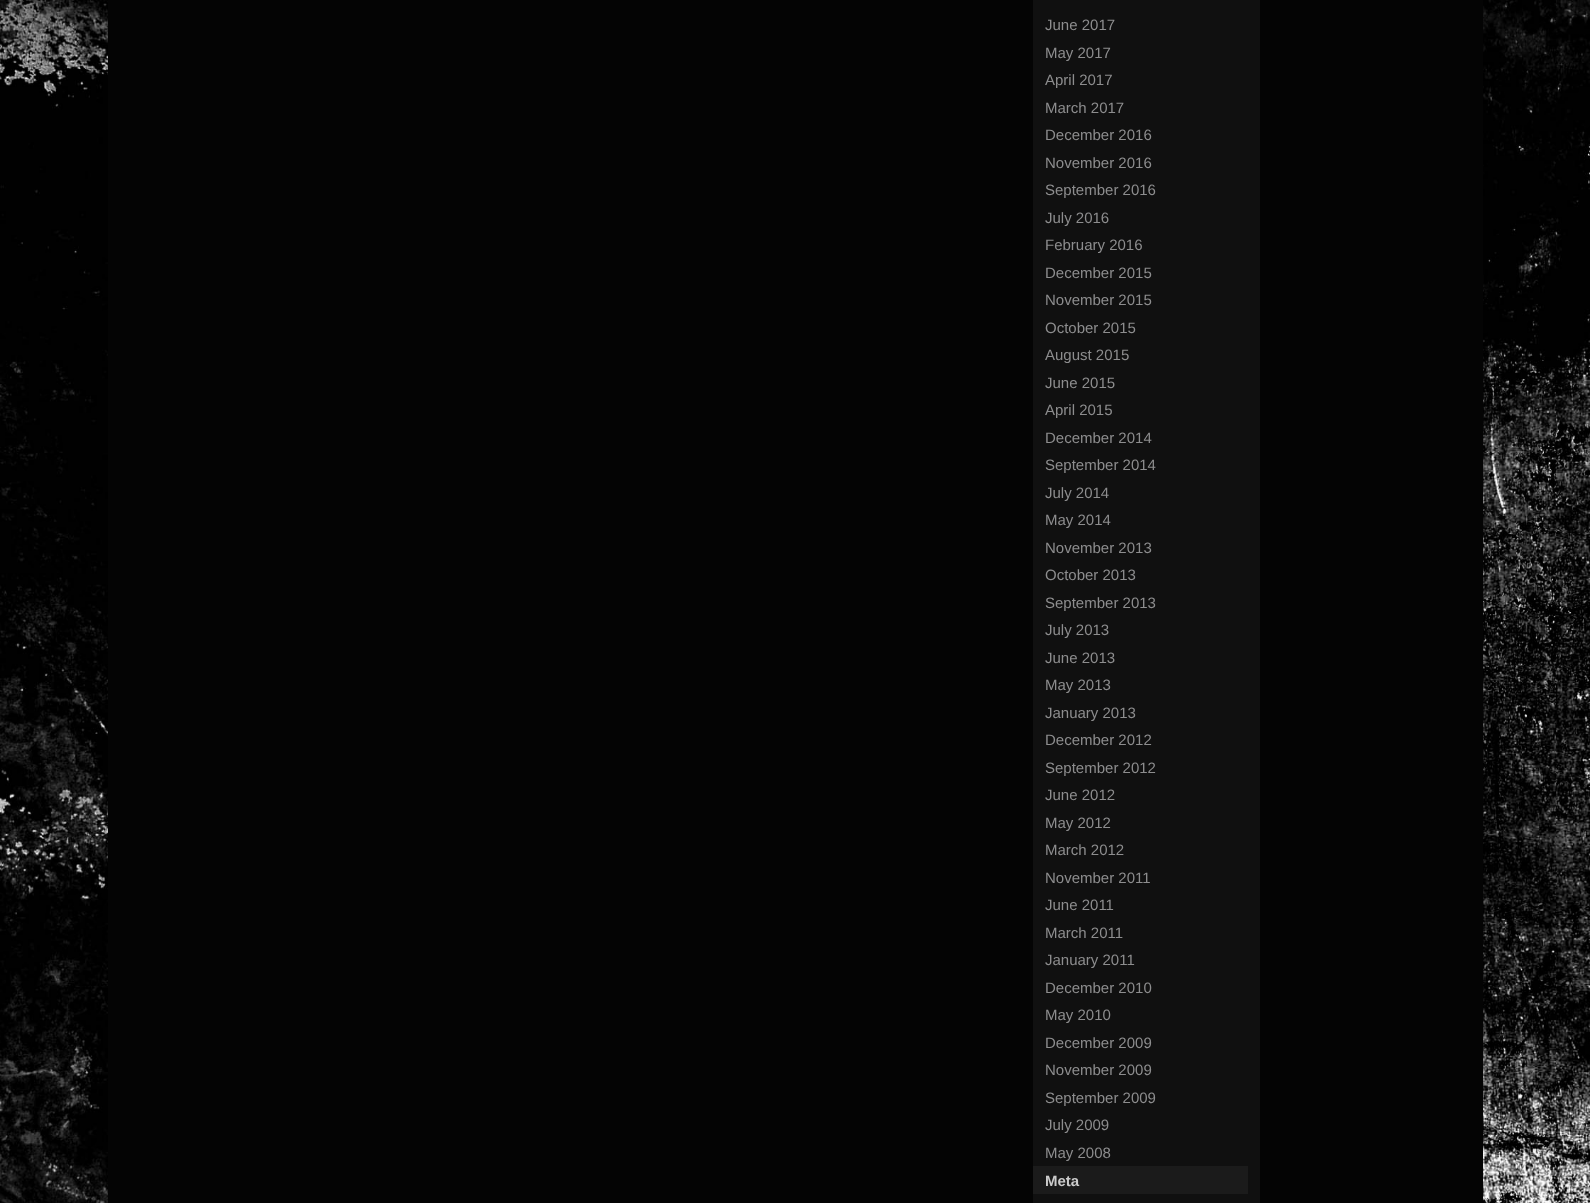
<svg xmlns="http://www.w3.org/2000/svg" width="1590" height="1203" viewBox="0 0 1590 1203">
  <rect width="100%" height="100%" fill="#ffffff"/>
  <image x="0" y="0" width="1590" height="1203" href="img1.png"/>
  <rect x="108" y="0" width="1375" height="1203" fill="#040404"/>
  <rect x="1033" y="0" width="227" height="1203" fill="#101010"/>
  <text x="1045" y="30" font-family="Liberation Sans" font-size="15" fill="#8d8d8e">June 2017</text>
  <text x="1045" y="58" font-family="Liberation Sans" font-size="15" fill="#8d8d8e">May 2017</text>
  <text x="1045" y="85" font-family="Liberation Sans" font-size="15" fill="#8d8d8e">April 2017</text>
  <text x="1045" y="113" font-family="Liberation Sans" font-size="15" fill="#8d8d8e">March 2017</text>
  <text x="1045" y="140" font-family="Liberation Sans" font-size="15" fill="#8d8d8e">December 2016</text>
  <text x="1045" y="168" font-family="Liberation Sans" font-size="15" fill="#8d8d8e">November 2016</text>
  <text x="1045" y="195" font-family="Liberation Sans" font-size="15" fill="#8d8d8e">September 2016</text>
  <text x="1045" y="223" font-family="Liberation Sans" font-size="15" fill="#8d8d8e">July 2016</text>
  <text x="1045" y="250" font-family="Liberation Sans" font-size="15" fill="#8d8d8e">February 2016</text>
  <text x="1045" y="278" font-family="Liberation Sans" font-size="15" fill="#8d8d8e">December 2015</text>
  <text x="1045" y="305" font-family="Liberation Sans" font-size="15" fill="#8d8d8e">November 2015</text>
  <text x="1045" y="333" font-family="Liberation Sans" font-size="15" fill="#8d8d8e">October 2015</text>
  <text x="1045" y="360" font-family="Liberation Sans" font-size="15" fill="#8d8d8e">August 2015</text>
  <text x="1045" y="388" font-family="Liberation Sans" font-size="15" fill="#8d8d8e">June 2015</text>
  <text x="1045" y="415" font-family="Liberation Sans" font-size="15" fill="#8d8d8e">April 2015</text>
  <text x="1045" y="443" font-family="Liberation Sans" font-size="15" fill="#8d8d8e">December 2014</text>
  <text x="1045" y="470" font-family="Liberation Sans" font-size="15" fill="#8d8d8e">September 2014</text>
  <text x="1045" y="498" font-family="Liberation Sans" font-size="15" fill="#8d8d8e">July 2014</text>
  <text x="1045" y="525" font-family="Liberation Sans" font-size="15" fill="#8d8d8e">May 2014</text>
  <text x="1045" y="553" font-family="Liberation Sans" font-size="15" fill="#8d8d8e">November 2013</text>
  <text x="1045" y="580" font-family="Liberation Sans" font-size="15" fill="#8d8d8e">October 2013</text>
  <text x="1045" y="608" font-family="Liberation Sans" font-size="15" fill="#8d8d8e">September 2013</text>
  <text x="1045" y="635" font-family="Liberation Sans" font-size="15" fill="#8d8d8e">July 2013</text>
  <text x="1045" y="663" font-family="Liberation Sans" font-size="15" fill="#8d8d8e">June 2013</text>
  <text x="1045" y="690" font-family="Liberation Sans" font-size="15" fill="#8d8d8e">May 2013</text>
  <text x="1045" y="718" font-family="Liberation Sans" font-size="15" fill="#8d8d8e">January 2013</text>
  <text x="1045" y="745" font-family="Liberation Sans" font-size="15" fill="#8d8d8e">December 2012</text>
  <text x="1045" y="773" font-family="Liberation Sans" font-size="15" fill="#8d8d8e">September 2012</text>
  <text x="1045" y="800" font-family="Liberation Sans" font-size="15" fill="#8d8d8e">June 2012</text>
  <text x="1045" y="828" font-family="Liberation Sans" font-size="15" fill="#8d8d8e">May 2012</text>
  <text x="1045" y="855" font-family="Liberation Sans" font-size="15" fill="#8d8d8e">March 2012</text>
  <text x="1045" y="883" font-family="Liberation Sans" font-size="15" fill="#8d8d8e">November 2011</text>
  <text x="1045" y="910" font-family="Liberation Sans" font-size="15" fill="#8d8d8e">June 2011</text>
  <text x="1045" y="938" font-family="Liberation Sans" font-size="15" fill="#8d8d8e">March 2011</text>
  <text x="1045" y="965" font-family="Liberation Sans" font-size="15" fill="#8d8d8e">January 2011</text>
  <text x="1045" y="993" font-family="Liberation Sans" font-size="15" fill="#8d8d8e">December 2010</text>
  <text x="1045" y="1020" font-family="Liberation Sans" font-size="15" fill="#8d8d8e">May 2010</text>
  <text x="1045" y="1048" font-family="Liberation Sans" font-size="15" fill="#8d8d8e">December 2009</text>
  <text x="1045" y="1075" font-family="Liberation Sans" font-size="15" fill="#8d8d8e">November 2009</text>
  <text x="1045" y="1103" font-family="Liberation Sans" font-size="15" fill="#8d8d8e">September 2009</text>
  <text x="1045" y="1130" font-family="Liberation Sans" font-size="15" fill="#8d8d8e">July 2009</text>
  <text x="1045" y="1158" font-family="Liberation Sans" font-size="15" fill="#8d8d8e">May 2008</text>
  <rect x="1033" y="1166" width="215" height="28" fill="#1b1b1b"/>
  <text x="1045" y="1186" font-family="Liberation Sans" font-size="15" font-weight="bold" fill="#cccccc">Meta</text>
</svg>
